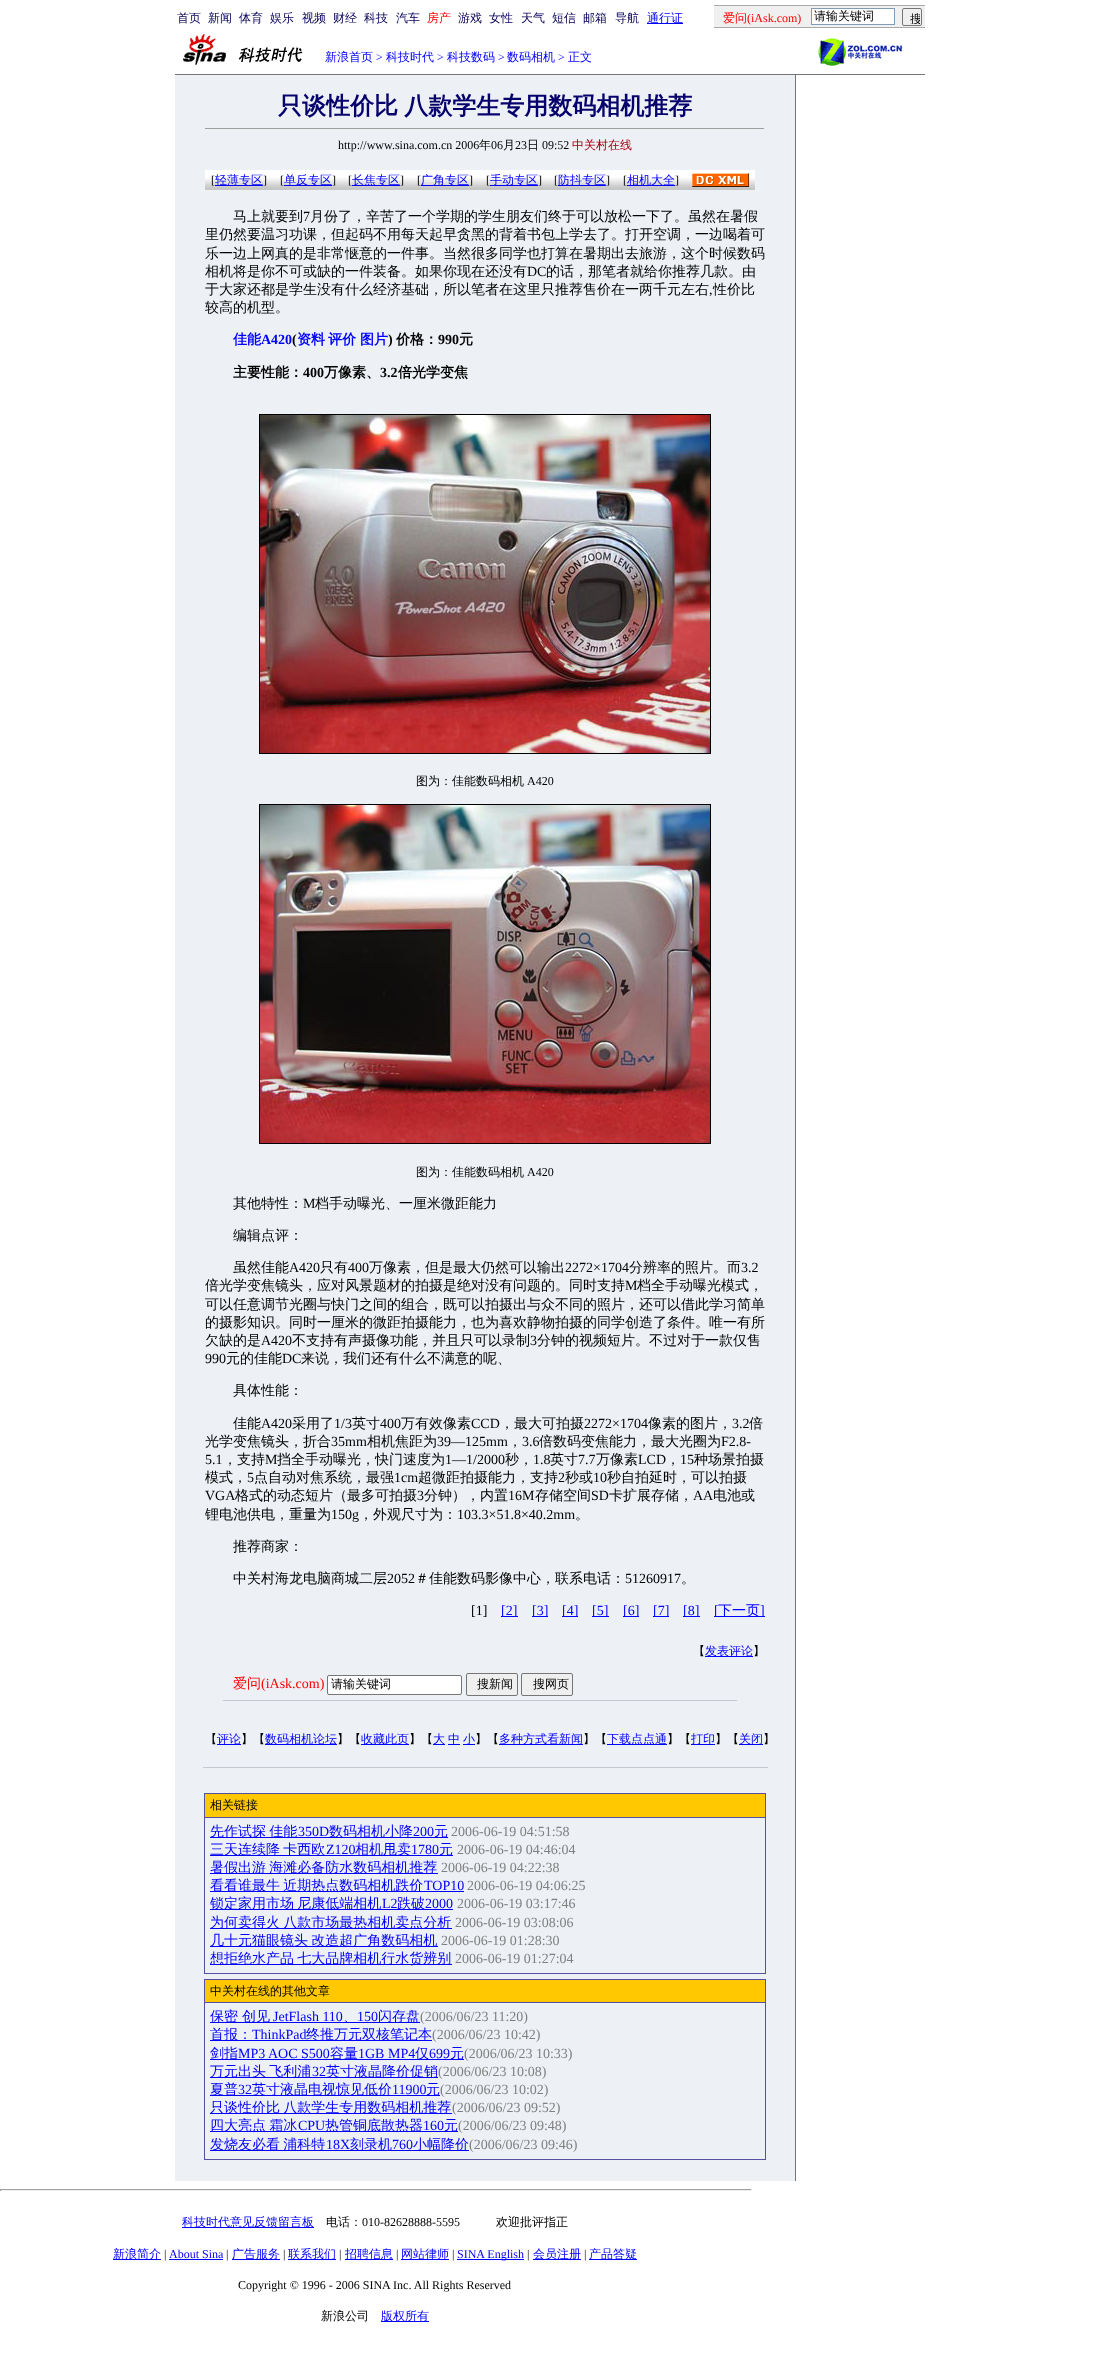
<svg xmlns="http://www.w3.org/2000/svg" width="1100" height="2372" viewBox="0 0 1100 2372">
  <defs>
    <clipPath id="clip1"><rect x="904" y="10" width="16" height="14"/></clipPath>
  </defs>
  <rect width="100%" height="100%" fill="#ffffff"/>
  <text x="177" y="22" font-family="WenQuanYi Zen Hei" font-size="12" font-weight="500" fill="#07015b">首页</text>
  <text x="208" y="22" font-family="WenQuanYi Zen Hei" font-size="12" font-weight="500" fill="#07015b">新闻</text>
  <text x="239" y="22" font-family="WenQuanYi Zen Hei" font-size="12" font-weight="500" fill="#07015b">体育</text>
  <text x="270" y="22" font-family="WenQuanYi Zen Hei" font-size="12" font-weight="500" fill="#07015b">娱乐</text>
  <text x="302" y="22" font-family="WenQuanYi Zen Hei" font-size="12" font-weight="500" fill="#07015b">视频</text>
  <text x="333" y="22" font-family="WenQuanYi Zen Hei" font-size="12" font-weight="500" fill="#07015b">财经</text>
  <text x="364" y="22" font-family="WenQuanYi Zen Hei" font-size="12" font-weight="500" fill="#07015b">科技</text>
  <text x="396" y="22" font-family="WenQuanYi Zen Hei" font-size="12" font-weight="500" fill="#07015b">汽车</text>
  <text x="427" y="22" font-family="WenQuanYi Zen Hei" font-size="12" font-weight="500" fill="#ff0000">房产</text>
  <text x="458" y="22" font-family="WenQuanYi Zen Hei" font-size="12" font-weight="500" fill="#07015b">游戏</text>
  <text x="489" y="22" font-family="WenQuanYi Zen Hei" font-size="12" font-weight="500" fill="#07015b">女性</text>
  <text x="521" y="22" font-family="WenQuanYi Zen Hei" font-size="12" font-weight="500" fill="#07015b">天气</text>
  <text x="552" y="22" font-family="WenQuanYi Zen Hei" font-size="12" font-weight="500" fill="#07015b">短信</text>
  <text x="583" y="22" font-family="WenQuanYi Zen Hei" font-size="12" font-weight="500" fill="#07015b">邮箱</text>
  <text x="615" y="22" font-family="WenQuanYi Zen Hei" font-size="12" font-weight="500" fill="#07015b">导航</text>
  <rect x="647" y="23" width="36" height="1" fill="#0000ff"/>
  <text x="647" y="22" font-family="WenQuanYi Zen Hei" font-size="12" font-weight="500" fill="#0000ff">通行证</text>
  <rect x="714" y="5" width="211" height="1" fill="#a9a9a9"/>
  <rect x="714" y="6" width="211" height="21" fill="#f0f0f0"/>
  <text x="723" y="22" font-family="WenQuanYi Zen Hei" font-size="12" font-weight="500" fill="#ff0000">爱问</text>
  <text x="747" y="22" font-family="Liberation Serif" font-size="12" fill="#ff0000">(iAsk.com)</text>
  <rect x="811.5" y="8.5" width="83" height="16" fill="#ffffff" stroke="#7f9db9"/>
  <text x="814" y="20" font-family="WenQuanYi Zen Hei" font-size="12" font-weight="500" fill="#000000">请输关键词</text>
  <rect x="902.5" y="8.5" width="19" height="17" rx="1.5" fill="none" stroke="#767676"/>
  <g clip-path="url(#clip1)">
    <text x="910" y="23" font-family="WenQuanYi Zen Hei" font-size="12" font-weight="500" fill="#000000">搜</text>
  </g>
  <rect x="714" y="27" width="211" height="1" fill="#a9a9a9"/>
  <image x="183" y="34" width="120" height="32" href="img1.png"/>
  <text x="325" y="61" font-family="WenQuanYi Zen Hei" font-size="12" font-weight="500" fill="#0000ff">新浪首页</text>
  <text x="376" y="61" font-family="Liberation Serif" font-size="12" fill="#0000ff">&gt;</text>
  <text x="386" y="61" font-family="WenQuanYi Zen Hei" font-size="12" font-weight="500" fill="#0000ff">科技时代</text>
  <text x="437" y="61" font-family="Liberation Serif" font-size="12" fill="#0000ff">&gt;</text>
  <text x="447" y="61" font-family="WenQuanYi Zen Hei" font-size="12" font-weight="500" fill="#0000ff">科技数码</text>
  <text x="498" y="61" font-family="Liberation Serif" font-size="12" fill="#0000ff">&gt;</text>
  <text x="507" y="61" font-family="WenQuanYi Zen Hei" font-size="12" font-weight="500" fill="#0000ff">数码相机</text>
  <text x="558" y="61" font-family="Liberation Serif" font-size="12" fill="#0000ff">&gt;</text>
  <text x="568" y="61" font-family="WenQuanYi Zen Hei" font-size="12" font-weight="500" fill="#0000ff">正文</text>
  <image x="818" y="38" width="85" height="28" href="img2.png"/>
  <rect x="175" y="74" width="750" height="1" fill="#747474"/>
  <rect x="175" y="75" width="620" height="2106" fill="#edf0f5"/>
  <text x="278" y="114" word-spacing="-1" font-family="WenQuanYi Zen Hei" font-size="24" font-weight="bold" fill="#05006c">只谈性价比 八款学生专用数码相机推荐</text>
  <rect x="205" y="128" width="560" height="1" fill="#9f9f9f"/>
  <rect x="764" y="128" width="1" height="1" fill="#eeeeee"/>
  <text x="338" y="149" font-family="Liberation Serif" font-size="12" fill="#000000">http://www.sina.com.cn 2006</text>
  <text x="479" y="149" font-family="WenQuanYi Zen Hei" font-size="12" font-weight="500" fill="#000000">年</text>
  <text x="491" y="149" font-family="Liberation Serif" font-size="12" fill="#000000">06</text>
  <text x="503" y="149" font-family="WenQuanYi Zen Hei" font-size="12" font-weight="500" fill="#000000">月</text>
  <text x="515" y="149" font-family="Liberation Serif" font-size="12" fill="#000000">23</text>
  <text x="527" y="149" font-family="WenQuanYi Zen Hei" font-size="12" font-weight="500" fill="#000000">日</text>
  <text x="542" y="149" font-family="Liberation Serif" font-size="12" fill="#000000">09:52</text>
  <text x="572" y="149" font-family="WenQuanYi Zen Hei" font-size="12" font-weight="500" fill="#a20010">中关村在线</text>
  <image x="205" y="170" width="550" height="20" href="img3.png"/>
  <text x="211" y="184" font-family="Liberation Serif" font-size="12" fill="#000000">[</text>
  <rect x="215" y="185" width="48" height="1" fill="#0000ff"/>
  <text x="215" y="184" font-family="WenQuanYi Zen Hei" font-size="12" font-weight="500" fill="#0000ff">轻薄专区</text>
  <text x="263" y="184" font-family="Liberation Serif" font-size="12" fill="#000000">]</text>
  <text x="280" y="184" font-family="Liberation Serif" font-size="12" fill="#000000">[</text>
  <rect x="284" y="185" width="48" height="1" fill="#0000ff"/>
  <text x="284" y="184" font-family="WenQuanYi Zen Hei" font-size="12" font-weight="500" fill="#0000ff">单反专区</text>
  <text x="332" y="184" font-family="Liberation Serif" font-size="12" fill="#000000">]</text>
  <text x="348" y="184" font-family="Liberation Serif" font-size="12" fill="#000000">[</text>
  <rect x="352" y="185" width="48" height="1" fill="#0000ff"/>
  <text x="352" y="184" font-family="WenQuanYi Zen Hei" font-size="12" font-weight="500" fill="#0000ff">长焦专区</text>
  <text x="400" y="184" font-family="Liberation Serif" font-size="12" fill="#000000">]</text>
  <text x="417" y="184" font-family="Liberation Serif" font-size="12" fill="#000000">[</text>
  <rect x="421" y="185" width="48" height="1" fill="#0000ff"/>
  <text x="421" y="184" font-family="WenQuanYi Zen Hei" font-size="12" font-weight="500" fill="#0000ff">广角专区</text>
  <text x="469" y="184" font-family="Liberation Serif" font-size="12" fill="#000000">]</text>
  <text x="486" y="184" font-family="Liberation Serif" font-size="12" fill="#000000">[</text>
  <rect x="490" y="185" width="48" height="1" fill="#0000ff"/>
  <text x="490" y="184" font-family="WenQuanYi Zen Hei" font-size="12" font-weight="500" fill="#0000ff">手动专区</text>
  <text x="538" y="184" font-family="Liberation Serif" font-size="12" fill="#000000">]</text>
  <text x="554" y="184" font-family="Liberation Serif" font-size="12" fill="#000000">[</text>
  <rect x="558" y="185" width="48" height="1" fill="#0000ff"/>
  <text x="558" y="184" font-family="WenQuanYi Zen Hei" font-size="12" font-weight="500" fill="#0000ff">防抖专区</text>
  <text x="606" y="184" font-family="Liberation Serif" font-size="12" fill="#000000">]</text>
  <text x="623" y="184" font-family="Liberation Serif" font-size="12" fill="#000000">[</text>
  <rect x="627" y="185" width="48" height="1" fill="#0000ff"/>
  <text x="627" y="184" font-family="WenQuanYi Zen Hei" font-size="12" font-weight="500" fill="#0000ff">相机大全</text>
  <text x="675" y="184" font-family="Liberation Serif" font-size="12" fill="#000000">]</text>
  <image x="692" y="173" width="57" height="14" href="img4.png"/>
  <text x="233" y="221" font-family="WenQuanYi Zen Hei" font-size="14" font-weight="500" fill="#000000">马上就要到</text>
  <text x="303" y="221" font-family="Liberation Serif" font-size="14" fill="#000000">7</text>
  <text x="310" y="221" font-family="WenQuanYi Zen Hei" font-size="14" font-weight="500" fill="#000000">月份了，辛苦了一个学期的学生朋友们终于可以放松一下了。虽然在暑假</text>
  <text x="205" y="239" font-family="WenQuanYi Zen Hei" font-size="14" font-weight="500" fill="#000000">里仍然要温习功课，但起码不用每天起早贪黑的背着书包上学去了。打开空调，一边喝着可</text>
  <text x="205" y="258" font-family="WenQuanYi Zen Hei" font-size="14" font-weight="500" fill="#000000">乐一边上网真的是非常惬意的一件事。当然很多同学也打算在暑期出去旅游，这个时候数码</text>
  <text x="205" y="276" font-family="WenQuanYi Zen Hei" font-size="14" font-weight="500" fill="#000000">相机将是你不可或缺的一件装备。如果你现在还没有</text>
  <text x="527" y="276" font-family="Liberation Serif" font-size="14" fill="#000000">DC</text>
  <text x="546" y="276" font-family="WenQuanYi Zen Hei" font-size="14" font-weight="500" fill="#000000">的话，那笔者就给你推荐几款。由</text>
  <text x="205" y="294" font-family="WenQuanYi Zen Hei" font-size="14" font-weight="500" fill="#000000">于大家还都是学生没有什么经济基础，所以笔者在这里只推荐售价在一两千元左右</text>
  <text x="709" y="294" font-family="Liberation Serif" font-size="14" fill="#000000">,</text>
  <text x="713" y="294" font-family="WenQuanYi Zen Hei" font-size="14" font-weight="500" fill="#000000">性价比</text>
  <text x="205" y="312" font-family="WenQuanYi Zen Hei" font-size="14" font-weight="500" fill="#000000">较高的机型。</text>
  <text x="233" y="344" font-family="WenQuanYi Zen Hei" font-size="14" font-weight="bold" fill="#0000ff">佳能</text>
  <text x="261" y="344" font-family="Liberation Serif" font-size="14" font-weight="bold" fill="#0000ff">A420</text>
  <text x="292" y="344" font-family="Liberation Serif" font-size="14" font-weight="bold" fill="#000000">(</text>
  <text x="297" y="344" font-family="WenQuanYi Zen Hei" font-size="14" font-weight="bold" fill="#0000ff">资料</text>
  <text x="328" y="344" font-family="WenQuanYi Zen Hei" font-size="14" font-weight="bold" fill="#0000ff">评价</text>
  <text x="360" y="344" font-family="WenQuanYi Zen Hei" font-size="14" font-weight="bold" fill="#0000ff">图片</text>
  <text x="388" y="344" font-family="Liberation Serif" font-size="14" font-weight="bold" fill="#000000">)</text>
  <text x="396" y="344" font-family="WenQuanYi Zen Hei" font-size="14" font-weight="bold" fill="#000000">价格：</text>
  <text x="438" y="344" font-family="Liberation Serif" font-size="14" font-weight="bold" fill="#000000">990</text>
  <text x="459" y="344" font-family="WenQuanYi Zen Hei" font-size="14" font-weight="bold" fill="#000000">元</text>
  <text x="233" y="377" font-family="WenQuanYi Zen Hei" font-size="14" font-weight="bold" fill="#000000">主要性能：</text>
  <text x="303" y="377" font-family="Liberation Serif" font-size="14" font-weight="bold" fill="#000000">400</text>
  <text x="324" y="377" font-family="WenQuanYi Zen Hei" font-size="14" font-weight="bold" fill="#000000">万像素、</text>
  <text x="380" y="377" font-family="Liberation Serif" font-size="14" font-weight="bold" fill="#000000">3.2</text>
  <text x="398" y="377" font-family="WenQuanYi Zen Hei" font-size="14" font-weight="bold" fill="#000000">倍光学变焦</text>
  <rect x="259.5" y="414.5" width="451" height="339" fill="none" stroke="#000000"/>
  <image x="260" y="415" width="450" height="338" href="img5.png"/>
  <text x="416" y="785" font-family="WenQuanYi Zen Hei" font-size="12" font-weight="500" fill="#000000">图为：佳能数码相机</text>
  <text x="527" y="785" font-family="Liberation Serif" font-size="12" fill="#000000">A420</text>
  <rect x="259.5" y="804.5" width="451" height="339" fill="none" stroke="#000000"/>
  <image x="260" y="805" width="450" height="338" href="img6.png"/>
  <text x="416" y="1176" font-family="WenQuanYi Zen Hei" font-size="12" font-weight="500" fill="#000000">图为：佳能数码相机</text>
  <text x="527" y="1176" font-family="Liberation Serif" font-size="12" fill="#000000">A420</text>
  <text x="233" y="1208" font-family="WenQuanYi Zen Hei" font-size="14" font-weight="500" fill="#000000">其他特性：</text>
  <text x="303" y="1208" font-family="Liberation Serif" font-size="14" fill="#000000">M</text>
  <text x="315" y="1208" font-family="WenQuanYi Zen Hei" font-size="14" font-weight="500" fill="#000000">档手动曝光、一厘米微距能力</text>
  <text x="233" y="1240" font-family="WenQuanYi Zen Hei" font-size="14" font-weight="500" fill="#000000">编辑点评：</text>
  <text x="233" y="1272" font-family="WenQuanYi Zen Hei" font-size="14" font-weight="500" fill="#000000">虽然佳能</text>
  <text x="289" y="1272" font-family="Liberation Serif" font-size="14" fill="#000000">A420</text>
  <text x="320" y="1272" font-family="WenQuanYi Zen Hei" font-size="14" font-weight="500" fill="#000000">只有</text>
  <text x="348" y="1272" font-family="Liberation Serif" font-size="14" fill="#000000">400</text>
  <text x="369" y="1272" font-family="WenQuanYi Zen Hei" font-size="14" font-weight="500" fill="#000000">万像素，但是最大仍然可以输出</text>
  <text x="565" y="1272" font-family="Liberation Serif" font-size="14" fill="#000000">2272×1704</text>
  <text x="629" y="1272" font-family="WenQuanYi Zen Hei" font-size="14" font-weight="500" fill="#000000">分辨率的照片。而</text>
  <text x="741" y="1272" font-family="Liberation Serif" font-size="14" fill="#000000">3.2</text>
  <text x="205" y="1290" font-family="WenQuanYi Zen Hei" font-size="14" font-weight="500" fill="#000000">倍光学变焦镜头，应对风景题材的拍摄是绝对没有问题的。同时支持</text>
  <text x="625" y="1290" font-family="Liberation Serif" font-size="14" fill="#000000">M</text>
  <text x="637" y="1290" font-family="WenQuanYi Zen Hei" font-size="14" font-weight="500" fill="#000000">档全手动曝光模式，</text>
  <text x="205" y="1309" font-family="WenQuanYi Zen Hei" font-size="14" font-weight="500" fill="#000000">可以任意调节光圈与快门之间的组合，既可以拍摄出与众不同的照片，还可以借此学习简单</text>
  <text x="205" y="1327" font-family="WenQuanYi Zen Hei" font-size="14" font-weight="500" fill="#000000">的摄影知识。同时一厘米的微距拍摄能力，也为喜欢静物拍摄的同学创造了条件。唯一有所</text>
  <text x="205" y="1345" font-family="WenQuanYi Zen Hei" font-size="14" font-weight="500" fill="#000000">欠缺的是</text>
  <text x="261" y="1345" font-family="Liberation Serif" font-size="14" fill="#000000">A420</text>
  <text x="292" y="1345" font-family="WenQuanYi Zen Hei" font-size="14" font-weight="500" fill="#000000">不支持有声摄像功能，并且只可以录制</text>
  <text x="530" y="1345" font-family="Liberation Serif" font-size="14" fill="#000000">3</text>
  <text x="537" y="1345" font-family="WenQuanYi Zen Hei" font-size="14" font-weight="500" fill="#000000">分钟的视频短片。不过对于一款仅售</text>
  <text x="205" y="1363" font-family="Liberation Serif" font-size="14" fill="#000000">990</text>
  <text x="226" y="1363" font-family="WenQuanYi Zen Hei" font-size="14" font-weight="500" fill="#000000">元的佳能</text>
  <text x="282" y="1363" font-family="Liberation Serif" font-size="14" fill="#000000">DC</text>
  <text x="301" y="1363" font-family="WenQuanYi Zen Hei" font-size="14" font-weight="500" fill="#000000">来说，我们还有什么不满意的呢、</text>
  <text x="233" y="1395" font-family="WenQuanYi Zen Hei" font-size="14" font-weight="500" fill="#000000">具体性能：</text>
  <text x="233" y="1428" font-family="WenQuanYi Zen Hei" font-size="14" font-weight="500" fill="#000000">佳能</text>
  <text x="261" y="1428" font-family="Liberation Serif" font-size="14" fill="#000000">A420</text>
  <text x="292" y="1428" font-family="WenQuanYi Zen Hei" font-size="14" font-weight="500" fill="#000000">采用了</text>
  <text x="334" y="1428" font-family="Liberation Serif" font-size="14" fill="#000000">1/3</text>
  <text x="352" y="1428" font-family="WenQuanYi Zen Hei" font-size="14" font-weight="500" fill="#000000">英寸</text>
  <text x="380" y="1428" font-family="Liberation Serif" font-size="14" fill="#000000">400</text>
  <text x="401" y="1428" font-family="WenQuanYi Zen Hei" font-size="14" font-weight="500" fill="#000000">万有效像素</text>
  <text x="471" y="1428" font-family="Liberation Serif" font-size="14" fill="#000000">CCD</text>
  <text x="500" y="1428" font-family="WenQuanYi Zen Hei" font-size="14" font-weight="500" fill="#000000">，最大可拍摄</text>
  <text x="584" y="1428" font-family="Liberation Serif" font-size="14" fill="#000000">2272×1704</text>
  <text x="648" y="1428" font-family="WenQuanYi Zen Hei" font-size="14" font-weight="500" fill="#000000">像素的图片，</text>
  <text x="732" y="1428" font-family="Liberation Serif" font-size="14" fill="#000000">3.2</text>
  <text x="749" y="1428" font-family="WenQuanYi Zen Hei" font-size="14" font-weight="500" fill="#000000">倍</text>
  <text x="205" y="1446" font-family="WenQuanYi Zen Hei" font-size="14" font-weight="500" fill="#000000">光学变焦镜头，折合</text>
  <text x="331" y="1446" font-family="Liberation Serif" font-size="14" fill="#000000">35mm</text>
  <text x="367" y="1446" font-family="WenQuanYi Zen Hei" font-size="14" font-weight="500" fill="#000000">相机焦距为</text>
  <text x="437" y="1446" font-family="Liberation Serif" font-size="14" fill="#000000">39—125mm</text>
  <text x="508" y="1446" font-family="WenQuanYi Zen Hei" font-size="14" font-weight="500" fill="#000000">，</text>
  <text x="522" y="1446" font-family="Liberation Serif" font-size="14" fill="#000000">3.6</text>
  <text x="539" y="1446" font-family="WenQuanYi Zen Hei" font-size="14" font-weight="500" fill="#000000">倍数码变焦能力，最大光圈为</text>
  <text x="721" y="1446" font-family="Liberation Serif" font-size="14" fill="#000000">F2.8-</text>
  <text x="205" y="1464" font-family="Liberation Serif" font-size="14" fill="#000000">5.1</text>
  <text x="223" y="1464" font-family="WenQuanYi Zen Hei" font-size="14" font-weight="500" fill="#000000">，支持</text>
  <text x="265" y="1464" font-family="Liberation Serif" font-size="14" fill="#000000">M</text>
  <text x="277" y="1464" font-family="WenQuanYi Zen Hei" font-size="14" font-weight="500" fill="#000000">挡全手动曝光，快门速度为</text>
  <text x="445" y="1464" font-family="Liberation Serif" font-size="14" fill="#000000">1—1/2000</text>
  <text x="505" y="1464" font-family="WenQuanYi Zen Hei" font-size="14" font-weight="500" fill="#000000">秒，</text>
  <text x="533" y="1464" font-family="Liberation Serif" font-size="14" fill="#000000">1.8</text>
  <text x="550" y="1464" font-family="WenQuanYi Zen Hei" font-size="14" font-weight="500" fill="#000000">英寸</text>
  <text x="578" y="1464" font-family="Liberation Serif" font-size="14" fill="#000000">7.7</text>
  <text x="596" y="1464" font-family="WenQuanYi Zen Hei" font-size="14" font-weight="500" fill="#000000">万像素</text>
  <text x="638" y="1464" font-family="Liberation Serif" font-size="14" fill="#000000">LCD</text>
  <text x="666" y="1464" font-family="WenQuanYi Zen Hei" font-size="14" font-weight="500" fill="#000000">，</text>
  <text x="680" y="1464" font-family="Liberation Serif" font-size="14" fill="#000000">15</text>
  <text x="694" y="1464" font-family="WenQuanYi Zen Hei" font-size="14" font-weight="500" fill="#000000">种场景拍摄</text>
  <text x="205" y="1482" font-family="WenQuanYi Zen Hei" font-size="14" font-weight="500" fill="#000000">模式，</text>
  <text x="247" y="1482" font-family="Liberation Serif" font-size="14" fill="#000000">5</text>
  <text x="254" y="1482" font-family="WenQuanYi Zen Hei" font-size="14" font-weight="500" fill="#000000">点自动对焦系统，最强</text>
  <text x="394" y="1482" font-family="Liberation Serif" font-size="14" fill="#000000">1cm</text>
  <text x="418" y="1482" font-family="WenQuanYi Zen Hei" font-size="14" font-weight="500" fill="#000000">超微距拍摄能力，支持</text>
  <text x="558" y="1482" font-family="Liberation Serif" font-size="14" fill="#000000">2</text>
  <text x="565" y="1482" font-family="WenQuanYi Zen Hei" font-size="14" font-weight="500" fill="#000000">秒或</text>
  <text x="593" y="1482" font-family="Liberation Serif" font-size="14" fill="#000000">10</text>
  <text x="607" y="1482" font-family="WenQuanYi Zen Hei" font-size="14" font-weight="500" fill="#000000">秒自拍延时，可以拍摄</text>
  <text x="205" y="1500" font-family="Liberation Serif" font-size="14" fill="#000000">VGA</text>
  <text x="235" y="1500" font-family="WenQuanYi Zen Hei" font-size="14" font-weight="500" fill="#000000">格式的动态短片（最多可拍摄</text>
  <text x="417" y="1500" font-family="Liberation Serif" font-size="14" fill="#000000">3</text>
  <text x="424" y="1500" font-family="WenQuanYi Zen Hei" font-size="14" font-weight="500" fill="#000000">分钟），内置</text>
  <text x="508" y="1500" font-family="Liberation Serif" font-size="14" fill="#000000">16M</text>
  <text x="535" y="1500" font-family="WenQuanYi Zen Hei" font-size="14" font-weight="500" fill="#000000">存储空间</text>
  <text x="591" y="1500" font-family="Liberation Serif" font-size="14" fill="#000000">SD</text>
  <text x="609" y="1500" font-family="WenQuanYi Zen Hei" font-size="14" font-weight="500" fill="#000000">卡扩展存储，</text>
  <text x="693" y="1500" font-family="Liberation Serif" font-size="14" fill="#000000">AA</text>
  <text x="713" y="1500" font-family="WenQuanYi Zen Hei" font-size="14" font-weight="500" fill="#000000">电池或</text>
  <text x="205" y="1519" font-family="WenQuanYi Zen Hei" font-size="14" font-weight="500" fill="#000000">锂电池供电，重量为</text>
  <text x="331" y="1519" font-family="Liberation Serif" font-size="14" fill="#000000">150g</text>
  <text x="359" y="1519" font-family="WenQuanYi Zen Hei" font-size="14" font-weight="500" fill="#000000">，外观尺寸为：</text>
  <text x="457" y="1519" font-family="Liberation Serif" font-size="14" fill="#000000">103.3×51.8×40.2mm</text>
  <text x="575" y="1519" font-family="WenQuanYi Zen Hei" font-size="14" font-weight="500" fill="#000000">。</text>
  <text x="233" y="1551" font-family="WenQuanYi Zen Hei" font-size="14" font-weight="500" fill="#000000">推荐商家：</text>
  <text x="233" y="1583" font-family="WenQuanYi Zen Hei" font-size="14" font-weight="500" fill="#000000">中关村海龙电脑商城二层</text>
  <text x="387" y="1583" font-family="Liberation Serif" font-size="14" fill="#000000">2052</text>
  <text x="415" y="1583" font-family="WenQuanYi Zen Hei" font-size="14" font-weight="500" fill="#000000">＃佳能数码影像中心，联系电话：</text>
  <text x="625" y="1583" font-family="Liberation Serif" font-size="14" fill="#000000">51260917</text>
  <text x="681" y="1583" font-family="WenQuanYi Zen Hei" font-size="14" font-weight="500" fill="#000000">。</text>
  <text x="471" y="1615" font-family="Liberation Serif" font-size="14" fill="#000000">[1]</text>
  <rect x="501" y="1616" width="17" height="1" fill="#0000ff"/>
  <text x="501" y="1615" font-family="Liberation Serif" font-size="14" fill="#0000ff">[2]</text>
  <rect x="532" y="1616" width="16" height="1" fill="#0000ff"/>
  <text x="532" y="1615" font-family="Liberation Serif" font-size="14" fill="#0000ff">[3]</text>
  <rect x="562" y="1616" width="16" height="1" fill="#0000ff"/>
  <text x="562" y="1615" font-family="Liberation Serif" font-size="14" fill="#0000ff">[4]</text>
  <rect x="592" y="1616" width="17" height="1" fill="#0000ff"/>
  <text x="592" y="1615" font-family="Liberation Serif" font-size="14" fill="#0000ff">[5]</text>
  <rect x="623" y="1616" width="16" height="1" fill="#0000ff"/>
  <text x="623" y="1615" font-family="Liberation Serif" font-size="14" fill="#0000ff">[6]</text>
  <rect x="653" y="1616" width="16" height="1" fill="#0000ff"/>
  <text x="653" y="1615" font-family="Liberation Serif" font-size="14" fill="#0000ff">[7]</text>
  <rect x="683" y="1616" width="17" height="1" fill="#0000ff"/>
  <text x="683" y="1615" font-family="Liberation Serif" font-size="14" fill="#0000ff">[8]</text>
  <rect x="714" y="1616" width="51" height="1" fill="#0000ff"/>
  <text x="714" y="1615" font-family="Liberation Serif" font-size="14" fill="#0000ff">[</text>
  <text x="718" y="1615" font-family="WenQuanYi Zen Hei" font-size="14" font-weight="500" fill="#0000ff">下一页</text>
  <text x="760" y="1615" font-family="Liberation Serif" font-size="14" fill="#0000ff">]</text>
  <text x="693" y="1655" font-family="WenQuanYi Zen Hei" font-size="12" font-weight="500" fill="#000000">【</text>
  <rect x="705" y="1656" width="48" height="1" fill="#0000ff"/>
  <text x="705" y="1655" font-family="WenQuanYi Zen Hei" font-size="12" font-weight="500" fill="#0000ff">发表评论</text>
  <text x="753" y="1655" font-family="WenQuanYi Zen Hei" font-size="12" font-weight="500" fill="#000000">】</text>
  <rect x="223" y="1700" width="514" height="1" fill="#c6c9d1"/>
  <text x="233" y="1688" font-family="WenQuanYi Zen Hei" font-size="14" font-weight="500" fill="#ff0000">爱问</text>
  <text x="261" y="1688" font-family="Liberation Serif" font-size="14" fill="#ff0000">(iAsk.com)</text>
  <rect x="327.5" y="1675.5" width="134" height="19" rx="1.5" fill="#ffffff" stroke="#767676"/>
  <text x="331" y="1688" font-family="WenQuanYi Zen Hei" font-size="12" font-weight="500" fill="#000000">请输关键词</text>
  <rect x="466.5" y="1673.5" width="51" height="22" rx="1.5" fill="#efefef" stroke="#767676"/>
  <text x="477" y="1688" font-family="WenQuanYi Zen Hei" font-size="12" font-weight="500" fill="#000000">搜新闻</text>
  <rect x="521.5" y="1673.5" width="51" height="22" rx="1.5" fill="#efefef" stroke="#767676"/>
  <text x="533" y="1688" font-family="WenQuanYi Zen Hei" font-size="12" font-weight="500" fill="#000000">搜网页</text>
  <text x="205" y="1743" font-family="WenQuanYi Zen Hei" font-size="12" font-weight="500" fill="#000000">【</text>
  <rect x="217" y="1744" width="24" height="1" fill="#0000ff"/>
  <text x="217" y="1743" font-family="WenQuanYi Zen Hei" font-size="12" font-weight="500" fill="#0000ff">评论</text>
  <text x="241" y="1743" font-family="WenQuanYi Zen Hei" font-size="12" font-weight="500" fill="#000000">】【</text>
  <rect x="265" y="1744" width="72" height="1" fill="#0000ff"/>
  <text x="265" y="1743" font-family="WenQuanYi Zen Hei" font-size="12" font-weight="500" fill="#0000ff">数码相机论坛</text>
  <text x="337" y="1743" font-family="WenQuanYi Zen Hei" font-size="12" font-weight="500" fill="#000000">】【</text>
  <rect x="361" y="1744" width="48" height="1" fill="#0000ff"/>
  <text x="361" y="1743" font-family="WenQuanYi Zen Hei" font-size="12" font-weight="500" fill="#0000ff">收藏此页</text>
  <text x="409" y="1743" font-family="WenQuanYi Zen Hei" font-size="12" font-weight="500" fill="#000000">】【</text>
  <rect x="433" y="1744" width="12" height="1" fill="#0000ff"/>
  <text x="433" y="1743" font-family="WenQuanYi Zen Hei" font-size="12" font-weight="500" fill="#0000ff">大</text>
  <rect x="448" y="1744" width="12" height="1" fill="#0000ff"/>
  <text x="448" y="1743" font-family="WenQuanYi Zen Hei" font-size="12" font-weight="500" fill="#0000ff">中</text>
  <rect x="463" y="1744" width="12" height="1" fill="#0000ff"/>
  <text x="463" y="1743" font-family="WenQuanYi Zen Hei" font-size="12" font-weight="500" fill="#0000ff">小</text>
  <text x="475" y="1743" font-family="WenQuanYi Zen Hei" font-size="12" font-weight="500" fill="#000000">】【</text>
  <rect x="499" y="1744" width="84" height="1" fill="#0000ff"/>
  <text x="499" y="1743" font-family="WenQuanYi Zen Hei" font-size="12" font-weight="500" fill="#0000ff">多种方式看新闻</text>
  <text x="583" y="1743" font-family="WenQuanYi Zen Hei" font-size="12" font-weight="500" fill="#000000">】【</text>
  <rect x="607" y="1744" width="60" height="1" fill="#0000ff"/>
  <text x="607" y="1743" font-family="WenQuanYi Zen Hei" font-size="12" font-weight="500" fill="#0000ff">下载点点通</text>
  <text x="667" y="1743" font-family="WenQuanYi Zen Hei" font-size="12" font-weight="500" fill="#000000">】【</text>
  <rect x="691" y="1744" width="24" height="1" fill="#0000ff"/>
  <text x="691" y="1743" font-family="WenQuanYi Zen Hei" font-size="12" font-weight="500" fill="#0000ff">打印</text>
  <text x="715" y="1743" font-family="WenQuanYi Zen Hei" font-size="12" font-weight="500" fill="#000000">】【</text>
  <rect x="739" y="1744" width="24" height="1" fill="#0000ff"/>
  <text x="739" y="1743" font-family="WenQuanYi Zen Hei" font-size="12" font-weight="500" fill="#0000ff">关闭</text>
  <text x="763" y="1743" font-family="WenQuanYi Zen Hei" font-size="12" font-weight="500" fill="#000000">】</text>
  <rect x="203" y="1767" width="565" height="1" fill="#c6c9d1"/>
  <rect x="204" y="1793" width="562" height="181" fill="#5550a2"/>
  <rect x="205" y="1794" width="560" height="23" fill="#ffc800"/>
  <text x="210" y="1809" font-family="WenQuanYi Zen Hei" font-size="12" font-weight="500" fill="#000000">相关链接</text>
  <rect x="205" y="1818" width="560" height="155" fill="#edf0f5"/>
  <rect x="210" y="1837" width="238" height="1" fill="#0000ff"/>
  <text x="210" y="1836" word-spacing="-1" font-family="WenQuanYi Zen Hei" font-size="14" font-weight="500" fill="#0000ff">先作试探 佳能</text>
  <text x="298" y="1836" font-family="Liberation Serif" font-size="14" fill="#0000ff">350D</text>
  <text x="329" y="1836" font-family="WenQuanYi Zen Hei" font-size="14" font-weight="500" fill="#0000ff">数码相机小降</text>
  <text x="413" y="1836" font-family="Liberation Serif" font-size="14" fill="#0000ff">200</text>
  <text x="434" y="1836" font-family="WenQuanYi Zen Hei" font-size="14" font-weight="500" fill="#0000ff">元</text>
  <text x="451" y="1836" font-family="Liberation Serif" font-size="14" fill="#808080">2006-06-19 04:51:58</text>
  <rect x="210" y="1855" width="243" height="1" fill="#0000ff"/>
  <text x="210" y="1854" word-spacing="-1" font-family="WenQuanYi Zen Hei" font-size="14" font-weight="500" fill="#0000ff">三天连续降 卡西欧</text>
  <text x="326" y="1854" font-family="Liberation Serif" font-size="14" fill="#0000ff">Z120</text>
  <text x="355" y="1854" font-family="WenQuanYi Zen Hei" font-size="14" font-weight="500" fill="#0000ff">相机甩卖</text>
  <text x="411" y="1854" font-family="Liberation Serif" font-size="14" fill="#0000ff">1780</text>
  <text x="439" y="1854" font-family="WenQuanYi Zen Hei" font-size="14" font-weight="500" fill="#0000ff">元</text>
  <text x="457" y="1854" font-family="Liberation Serif" font-size="14" fill="#808080">2006-06-19 04:46:04</text>
  <rect x="210" y="1873" width="228" height="1" fill="#0000ff"/>
  <text x="210" y="1872" word-spacing="-1" font-family="WenQuanYi Zen Hei" font-size="14" font-weight="500" fill="#0000ff">暑假出游 海滩必备防水数码相机推荐</text>
  <text x="441" y="1872" font-family="Liberation Serif" font-size="14" fill="#808080">2006-06-19 04:22:38</text>
  <rect x="210" y="1891" width="254" height="1" fill="#0000ff"/>
  <text x="210" y="1890" word-spacing="-1" font-family="WenQuanYi Zen Hei" font-size="14" font-weight="500" fill="#0000ff">看看谁最牛 近期热点数码相机跌价</text>
  <text x="424" y="1890" font-family="Liberation Serif" font-size="14" fill="#0000ff">TOP10</text>
  <text x="467" y="1890" font-family="Liberation Serif" font-size="14" fill="#808080">2006-06-19 04:06:25</text>
  <rect x="210" y="1909" width="243" height="1" fill="#0000ff"/>
  <text x="210" y="1908" word-spacing="-1" font-family="WenQuanYi Zen Hei" font-size="14" font-weight="500" fill="#0000ff">锁定家用市场 尼康低端相机</text>
  <text x="382" y="1908" font-family="Liberation Serif" font-size="14" fill="#0000ff">L2</text>
  <text x="397" y="1908" font-family="WenQuanYi Zen Hei" font-size="14" font-weight="500" fill="#0000ff">跌破</text>
  <text x="425" y="1908" font-family="Liberation Serif" font-size="14" fill="#0000ff">2000</text>
  <text x="457" y="1908" font-family="Liberation Serif" font-size="14" fill="#808080">2006-06-19 03:17:46</text>
  <rect x="210" y="1928" width="242" height="1" fill="#0000ff"/>
  <text x="210" y="1927" word-spacing="-1" font-family="WenQuanYi Zen Hei" font-size="14" font-weight="500" fill="#0000ff">为何卖得火 八款市场最热相机卖点分析</text>
  <text x="455" y="1927" font-family="Liberation Serif" font-size="14" fill="#808080">2006-06-19 03:08:06</text>
  <rect x="210" y="1946" width="228" height="1" fill="#0000ff"/>
  <text x="210" y="1945" word-spacing="-1" font-family="WenQuanYi Zen Hei" font-size="14" font-weight="500" fill="#0000ff">几十元猫眼镜头 改造超广角数码相机</text>
  <text x="441" y="1945" font-family="Liberation Serif" font-size="14" fill="#808080">2006-06-19 01:28:30</text>
  <rect x="210" y="1964" width="242" height="1" fill="#0000ff"/>
  <text x="210" y="1963" word-spacing="-1" font-family="WenQuanYi Zen Hei" font-size="14" font-weight="500" fill="#0000ff">想拒绝水产品 七大品牌相机行水货辨别</text>
  <text x="455" y="1963" font-family="Liberation Serif" font-size="14" fill="#808080">2006-06-19 01:27:04</text>
  <rect x="204" y="1979" width="562" height="181" fill="#5550a2"/>
  <rect x="205" y="1980" width="560" height="22" fill="#ffc800"/>
  <text x="210" y="1995" font-family="WenQuanYi Zen Hei" font-size="12" font-weight="500" fill="#000000">中关村在线的其他文章</text>
  <rect x="205" y="2003" width="560" height="156" fill="#edf0f5"/>
  <rect x="210" y="2022" width="210" height="1" fill="#0000ff"/>
  <text x="210" y="2021" font-family="WenQuanYi Zen Hei" font-size="14" font-weight="500" fill="#0000ff">保密</text>
  <text x="242" y="2021" font-family="WenQuanYi Zen Hei" font-size="14" font-weight="500" fill="#0000ff">创见</text>
  <text x="273" y="2021" font-family="Liberation Serif" font-size="14" fill="#0000ff">JetFlash 110</text>
  <text x="343" y="2021" font-family="WenQuanYi Zen Hei" font-size="14" font-weight="500" fill="#0000ff">、</text>
  <text x="357" y="2021" font-family="Liberation Serif" font-size="14" fill="#0000ff">150</text>
  <text x="378" y="2021" font-family="WenQuanYi Zen Hei" font-size="14" font-weight="500" fill="#0000ff">闪存盘</text>
  <text x="420" y="2021" font-family="Liberation Serif" font-size="14" fill="#808080">(2006/06/23 11:20)</text>
  <rect x="210" y="2040" width="222" height="1" fill="#0000ff"/>
  <text x="210" y="2039" font-family="WenQuanYi Zen Hei" font-size="14" font-weight="500" fill="#0000ff">首报：</text>
  <text x="252" y="2039" font-family="Liberation Serif" font-size="14" fill="#0000ff">ThinkPad</text>
  <text x="306" y="2039" font-family="WenQuanYi Zen Hei" font-size="14" font-weight="500" fill="#0000ff">终推万元双核笔记本</text>
  <text x="432" y="2039" font-family="Liberation Serif" font-size="14" fill="#808080">(2006/06/23 10:42)</text>
  <rect x="210" y="2059" width="254" height="1" fill="#0000ff"/>
  <text x="210" y="2058" font-family="WenQuanYi Zen Hei" font-size="14" font-weight="500" fill="#0000ff">剑指</text>
  <text x="238" y="2058" font-family="Liberation Serif" font-size="14" fill="#0000ff">MP3 AOC S500</text>
  <text x="330" y="2058" font-family="WenQuanYi Zen Hei" font-size="14" font-weight="500" fill="#0000ff">容量</text>
  <text x="358" y="2058" font-family="Liberation Serif" font-size="14" fill="#0000ff">1GB MP4</text>
  <text x="415" y="2058" font-family="WenQuanYi Zen Hei" font-size="14" font-weight="500" fill="#0000ff">仅</text>
  <text x="429" y="2058" font-family="Liberation Serif" font-size="14" fill="#0000ff">699</text>
  <text x="450" y="2058" font-family="WenQuanYi Zen Hei" font-size="14" font-weight="500" fill="#0000ff">元</text>
  <text x="464" y="2058" font-family="Liberation Serif" font-size="14" fill="#808080">(2006/06/23 10:33)</text>
  <rect x="210" y="2077" width="228" height="1" fill="#0000ff"/>
  <text x="210" y="2076" word-spacing="-1" font-family="WenQuanYi Zen Hei" font-size="14" font-weight="500" fill="#0000ff">万元出头 飞利浦</text>
  <text x="312" y="2076" font-family="Liberation Serif" font-size="14" fill="#0000ff">32</text>
  <text x="326" y="2076" font-family="WenQuanYi Zen Hei" font-size="14" font-weight="500" fill="#0000ff">英寸液晶降价促销</text>
  <text x="438" y="2076" font-family="Liberation Serif" font-size="14" fill="#808080">(2006/06/23 10:08)</text>
  <rect x="210" y="2095" width="230" height="1" fill="#0000ff"/>
  <text x="210" y="2094" font-family="WenQuanYi Zen Hei" font-size="14" font-weight="500" fill="#0000ff">夏普</text>
  <text x="238" y="2094" font-family="Liberation Serif" font-size="14" fill="#0000ff">32</text>
  <text x="252" y="2094" font-family="WenQuanYi Zen Hei" font-size="14" font-weight="500" fill="#0000ff">英寸液晶电视惊见低价</text>
  <text x="392" y="2094" font-family="Liberation Serif" font-size="14" fill="#0000ff">11900</text>
  <text x="426" y="2094" font-family="WenQuanYi Zen Hei" font-size="14" font-weight="500" fill="#0000ff">元</text>
  <text x="440" y="2094" font-family="Liberation Serif" font-size="14" fill="#808080">(2006/06/23 10:02)</text>
  <rect x="210" y="2113" width="242" height="1" fill="#0000ff"/>
  <text x="210" y="2112" word-spacing="-1" font-family="WenQuanYi Zen Hei" font-size="14" font-weight="500" fill="#0000ff">只谈性价比 八款学生专用数码相机推荐</text>
  <text x="452" y="2112" font-family="Liberation Serif" font-size="14" fill="#808080">(2006/06/23 09:52)</text>
  <rect x="210" y="2131" width="248" height="1" fill="#0000ff"/>
  <text x="210" y="2130" word-spacing="-1" font-family="WenQuanYi Zen Hei" font-size="14" font-weight="500" fill="#0000ff">四大亮点 霜冰</text>
  <text x="298" y="2130" font-family="Liberation Serif" font-size="14" fill="#0000ff">CPU</text>
  <text x="325" y="2130" font-family="WenQuanYi Zen Hei" font-size="14" font-weight="500" fill="#0000ff">热管铜底散热器</text>
  <text x="423" y="2130" font-family="Liberation Serif" font-size="14" fill="#0000ff">160</text>
  <text x="444" y="2130" font-family="WenQuanYi Zen Hei" font-size="14" font-weight="500" fill="#0000ff">元</text>
  <text x="458" y="2130" font-family="Liberation Serif" font-size="14" fill="#808080">(2006/06/23 09:48)</text>
  <rect x="210" y="2150" width="259" height="1" fill="#0000ff"/>
  <text x="210" y="2149" word-spacing="-1" font-family="WenQuanYi Zen Hei" font-size="14" font-weight="500" fill="#0000ff">发烧友必看 浦科特</text>
  <text x="326" y="2149" font-family="Liberation Serif" font-size="14" fill="#0000ff">18X</text>
  <text x="350" y="2149" font-family="WenQuanYi Zen Hei" font-size="14" font-weight="500" fill="#0000ff">刻录机</text>
  <text x="392" y="2149" font-family="Liberation Serif" font-size="14" fill="#0000ff">760</text>
  <text x="413" y="2149" font-family="WenQuanYi Zen Hei" font-size="14" font-weight="500" fill="#0000ff">小幅降价</text>
  <text x="469" y="2149" font-family="Liberation Serif" font-size="14" fill="#808080">(2006/06/23 09:46)</text>
  <rect x="795" y="75" width="1" height="2106" fill="#747474"/>
  <rect x="0" y="2189" width="752" height="1" fill="#9f9f9f"/>
  <rect x="751" y="2189" width="1" height="2" fill="#eeeeee"/>
  <rect x="0" y="2190" width="752" height="1" fill="#eeeeee"/>
  <rect x="0" y="2189" width="1" height="2" fill="#9f9f9f"/>
  <rect x="182" y="2227" width="132" height="1" fill="#0000ff"/>
  <text x="182" y="2226" font-family="WenQuanYi Zen Hei" font-size="12" font-weight="500" fill="#0000ff">科技时代意见反馈留言板</text>
  <text x="326" y="2226" font-family="WenQuanYi Zen Hei" font-size="12" font-weight="500" fill="#000000">电话：</text>
  <text x="362" y="2226" font-family="Liberation Serif" font-size="12" fill="#000000">010-82628888-5595</text>
  <text x="496" y="2226" font-family="WenQuanYi Zen Hei" font-size="12" font-weight="500" fill="#000000">欢迎批评指正</text>
  <rect x="113" y="2259" width="48" height="1" fill="#0000ff"/>
  <text x="113" y="2258" font-family="WenQuanYi Zen Hei" font-size="12" font-weight="500" fill="#0000ff">新浪简介</text>
  <text x="164" y="2258" font-family="Liberation Serif" font-size="12" fill="#000000">|</text>
  <text x="169" y="2258" font-family="Liberation Serif" font-size="12" fill="#0000ff">About Sina</text>
  <rect x="169" y="2259" width="54" height="1" fill="#0000ff"/>
  <text x="226" y="2258" font-family="Liberation Serif" font-size="12" fill="#000000">|</text>
  <rect x="232" y="2259" width="48" height="1" fill="#0000ff"/>
  <text x="232" y="2258" font-family="WenQuanYi Zen Hei" font-size="12" font-weight="500" fill="#0000ff">广告服务</text>
  <text x="283" y="2258" font-family="Liberation Serif" font-size="12" fill="#000000">|</text>
  <rect x="288" y="2259" width="48" height="1" fill="#0000ff"/>
  <text x="288" y="2258" font-family="WenQuanYi Zen Hei" font-size="12" font-weight="500" fill="#0000ff">联系我们</text>
  <text x="339" y="2258" font-family="Liberation Serif" font-size="12" fill="#000000">|</text>
  <rect x="345" y="2259" width="48" height="1" fill="#0000ff"/>
  <text x="345" y="2258" font-family="WenQuanYi Zen Hei" font-size="12" font-weight="500" fill="#0000ff">招聘信息</text>
  <text x="396" y="2258" font-family="Liberation Serif" font-size="12" fill="#000000">|</text>
  <rect x="401" y="2259" width="48" height="1" fill="#0000ff"/>
  <text x="401" y="2258" font-family="WenQuanYi Zen Hei" font-size="12" font-weight="500" fill="#0000ff">网站律师</text>
  <text x="452" y="2258" font-family="Liberation Serif" font-size="12" fill="#000000">|</text>
  <rect x="457" y="2259" width="67" height="1" fill="#0000ff"/>
  <text x="457" y="2258" font-family="Liberation Serif" font-size="12" fill="#0000ff">SINA English</text>
  <text x="527" y="2258" font-family="Liberation Serif" font-size="12" fill="#000000">|</text>
  <rect x="533" y="2259" width="48" height="1" fill="#0000ff"/>
  <text x="533" y="2258" font-family="WenQuanYi Zen Hei" font-size="12" font-weight="500" fill="#0000ff">会员注册</text>
  <text x="584" y="2258" font-family="Liberation Serif" font-size="12" fill="#000000">|</text>
  <rect x="589" y="2259" width="48" height="1" fill="#0000ff"/>
  <text x="589" y="2258" font-family="WenQuanYi Zen Hei" font-size="12" font-weight="500" fill="#0000ff">产品答疑</text>
  <text x="238" y="2289" font-family="Liberation Serif" font-size="12" fill="#000000">Copyright © 1996 - 2006 SINA Inc. All Rights Reserved</text>
  <text x="321" y="2320" font-family="WenQuanYi Zen Hei" font-size="12" font-weight="500" fill="#000000">新浪公司</text>
  <rect x="381" y="2321" width="48" height="1" fill="#0000ff"/>
  <text x="381" y="2320" font-family="WenQuanYi Zen Hei" font-size="12" font-weight="500" fill="#0000ff">版权所有</text>
</svg>
